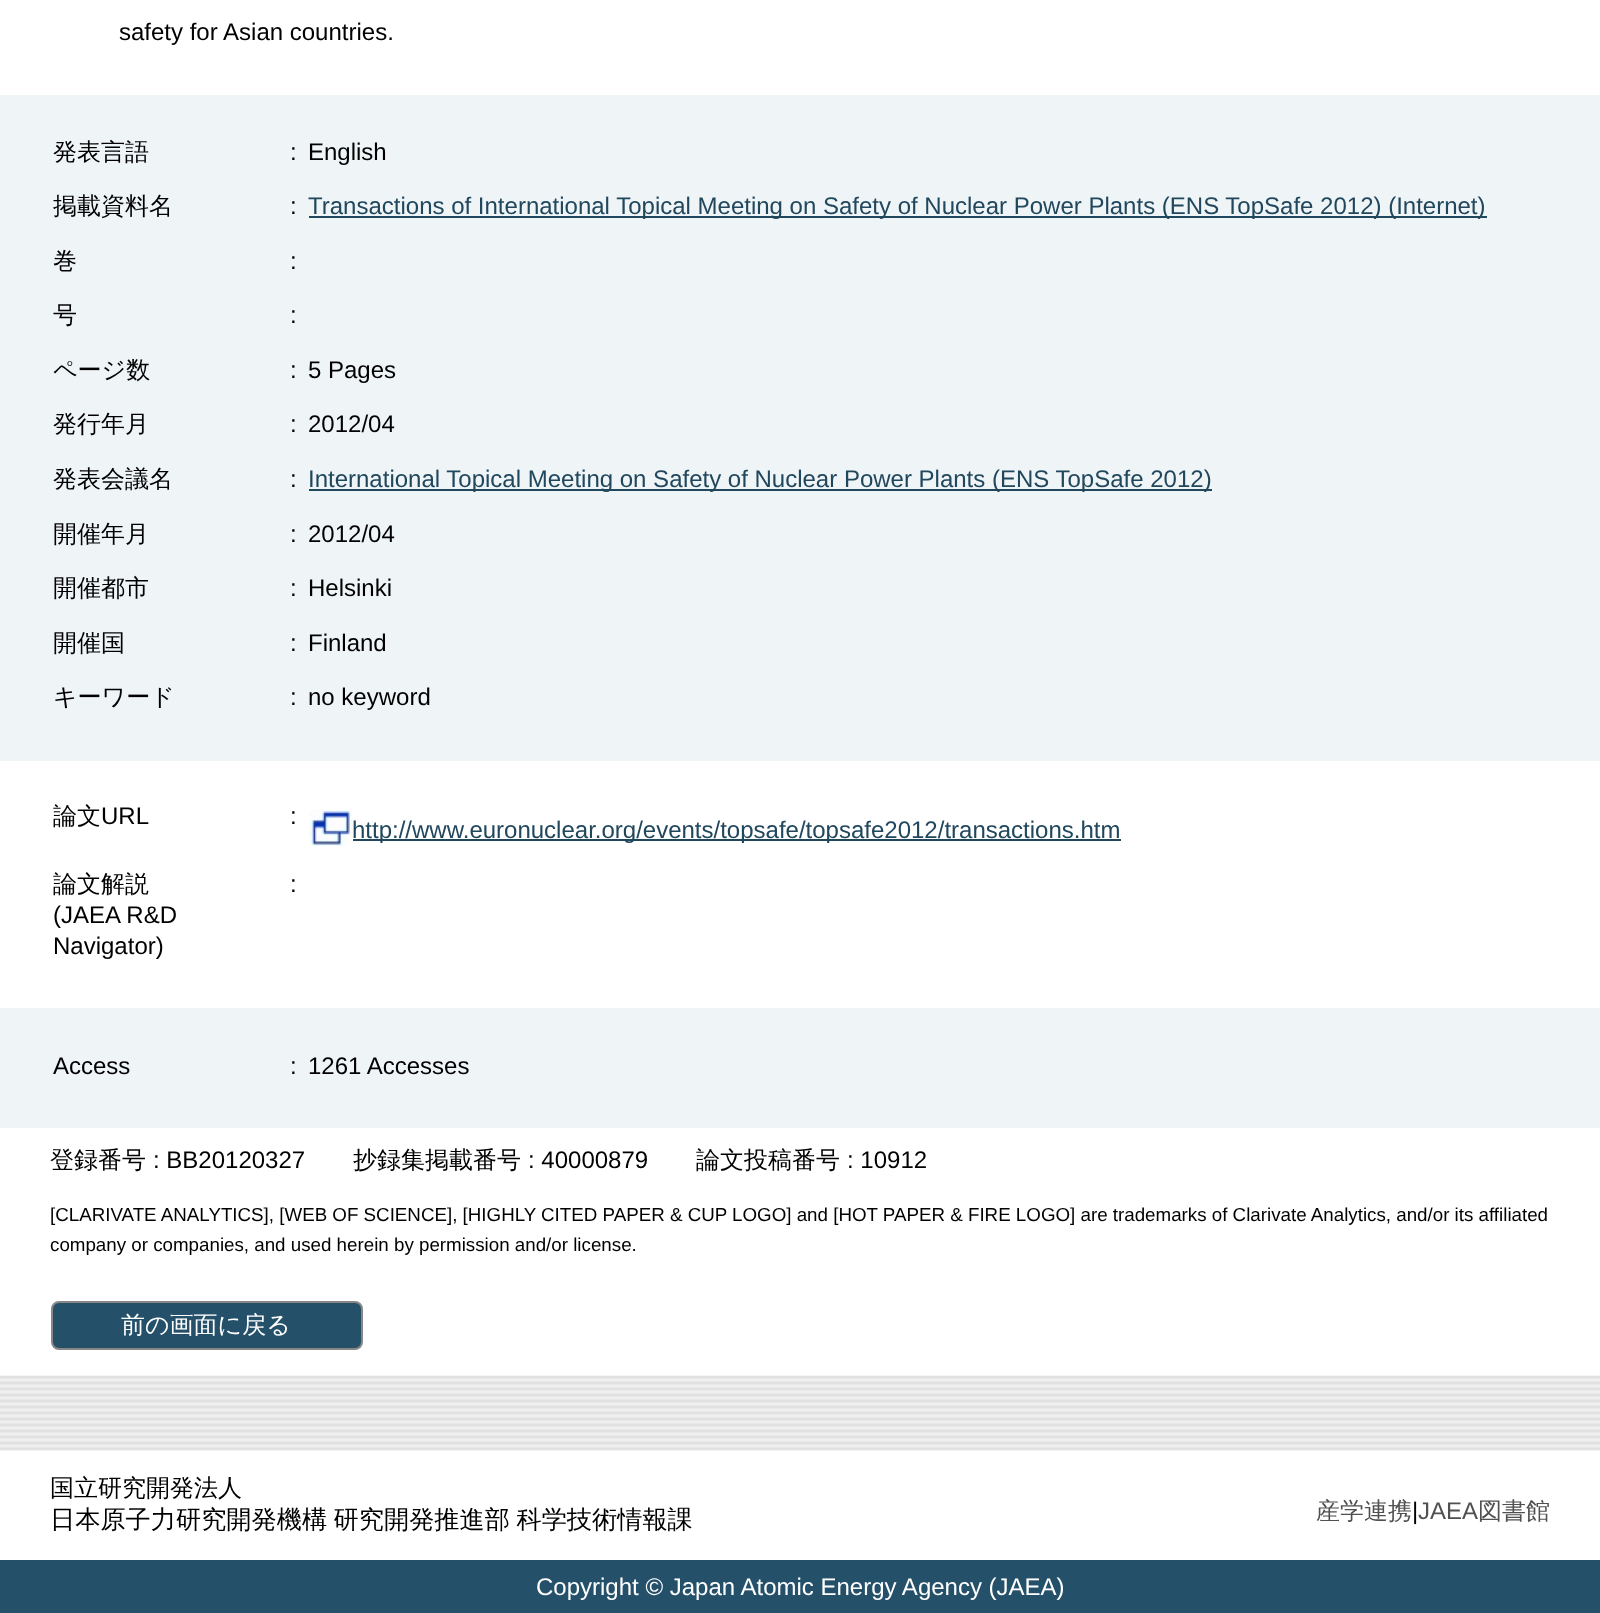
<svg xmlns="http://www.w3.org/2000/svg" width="1600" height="1613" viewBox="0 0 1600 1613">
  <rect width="100%" height="100%" fill="#ffffff"/>
  <text x="119" y="40" font-family="Liberation Sans" font-size="24" fill="#000000">safety for Asian countries.</text>
  <rect x="0" y="95" width="1600" height="666" fill="#eff4f7"/>
  <text x="53" y="160" font-family="WenQuanYi Zen Hei" font-size="24" font-weight="500" fill="#000000">発表言語</text>
  <text x="290" y="160" font-family="Liberation Sans" font-size="24" fill="#000000">:</text>
  <text x="308" y="160" font-family="Liberation Sans" font-size="24" fill="#000000">English</text>
  <text x="53" y="214" font-family="WenQuanYi Zen Hei" font-size="24" font-weight="500" fill="#000000">掲載資料名</text>
  <text x="290" y="214" font-family="Liberation Sans" font-size="24" fill="#000000">:</text>
  <rect x="309" y="216" width="1178" height="2" fill="#21475d"/>
  <text x="308" y="214" font-family="Liberation Sans" font-size="24" fill="#21475d">Transactions of International Topical Meeting on Safety of Nuclear Power Plants (ENS TopSafe 2012) (Internet)</text>
  <text x="53" y="269" font-family="WenQuanYi Zen Hei" font-size="24" font-weight="500" fill="#000000">巻</text>
  <text x="290" y="269" font-family="Liberation Sans" font-size="24" fill="#000000">:</text>
  <text x="53" y="323" font-family="WenQuanYi Zen Hei" font-size="24" font-weight="500" fill="#000000">号</text>
  <text x="290" y="323" font-family="Liberation Sans" font-size="24" fill="#000000">:</text>
  <text x="53" y="378" font-family="WenQuanYi Zen Hei" font-size="24" font-weight="500" fill="#000000">ページ数</text>
  <text x="290" y="378" font-family="Liberation Sans" font-size="24" fill="#000000">:</text>
  <text x="308" y="378" font-family="Liberation Sans" font-size="24" fill="#000000">5 Pages</text>
  <text x="53" y="432" font-family="WenQuanYi Zen Hei" font-size="24" font-weight="500" fill="#000000">発行年月</text>
  <text x="290" y="432" font-family="Liberation Sans" font-size="24" fill="#000000">:</text>
  <text x="308" y="432" font-family="Liberation Sans" font-size="24" fill="#000000">2012/04</text>
  <text x="53" y="487" font-family="WenQuanYi Zen Hei" font-size="24" font-weight="500" fill="#000000">発表会議名</text>
  <text x="290" y="487" font-family="Liberation Sans" font-size="24" fill="#000000">:</text>
  <rect x="309" y="489" width="903" height="2" fill="#21475d"/>
  <text x="308" y="487" font-family="Liberation Sans" font-size="24" fill="#21475d">International Topical Meeting on Safety of Nuclear Power Plants (ENS TopSafe 2012)</text>
  <text x="53" y="542" font-family="WenQuanYi Zen Hei" font-size="24" font-weight="500" fill="#000000">開催年月</text>
  <text x="290" y="542" font-family="Liberation Sans" font-size="24" fill="#000000">:</text>
  <text x="308" y="542" font-family="Liberation Sans" font-size="24" fill="#000000">2012/04</text>
  <text x="53" y="596" font-family="WenQuanYi Zen Hei" font-size="24" font-weight="500" fill="#000000">開催都市</text>
  <text x="290" y="596" font-family="Liberation Sans" font-size="24" fill="#000000">:</text>
  <text x="308" y="596" font-family="Liberation Sans" font-size="24" fill="#000000">Helsinki</text>
  <text x="53" y="651" font-family="WenQuanYi Zen Hei" font-size="24" font-weight="500" fill="#000000">開催国</text>
  <text x="290" y="651" font-family="Liberation Sans" font-size="24" fill="#000000">:</text>
  <text x="308" y="651" font-family="Liberation Sans" font-size="24" fill="#000000">Finland</text>
  <text x="53" y="705" font-family="WenQuanYi Zen Hei" font-size="24" font-weight="500" fill="#000000">キーワード</text>
  <text x="290" y="705" font-family="Liberation Sans" font-size="24" fill="#000000">:</text>
  <text x="308" y="705" font-family="Liberation Sans" font-size="24" fill="#000000">no keyword</text>
  <text x="53" y="824" font-family="WenQuanYi Zen Hei" font-size="24" font-weight="500" fill="#000000">論文</text>
  <text x="101" y="824" font-family="Liberation Sans" font-size="24" fill="#000000">URL</text>
  <text x="290" y="824" font-family="Liberation Sans" font-size="24" fill="#000000">:</text>
  <image x="309" y="810" width="44" height="36" href="img1.png"/>
  <rect x="353" y="839" width="768" height="2" fill="#21475d"/>
  <text x="352" y="838" font-family="Liberation Sans" font-size="24" fill="#21475d">http://www.euronuclear.org/events/topsafe/topsafe2012/transactions.htm</text>
  <text x="53" y="892" font-family="WenQuanYi Zen Hei" font-size="24" font-weight="500" fill="#000000">論文解説</text>
  <text x="53" y="923" font-family="Liberation Sans" font-size="24" fill="#000000">(JAEA R&amp;D</text>
  <text x="53" y="954" font-family="Liberation Sans" font-size="24" fill="#000000">Navigator)</text>
  <text x="290" y="892" font-family="Liberation Sans" font-size="24" fill="#000000">:</text>
  <rect x="0" y="1008" width="1600" height="120" fill="#eff4f7"/>
  <text x="53" y="1074" font-family="Liberation Sans" font-size="24" fill="#000000">Access</text>
  <text x="290" y="1074" font-family="Liberation Sans" font-size="24" fill="#000000">:</text>
  <text x="308" y="1074" font-family="Liberation Sans" font-size="24" fill="#000000">1261 Accesses</text>
  <text x="50" y="1168" font-family="WenQuanYi Zen Hei" font-size="24" font-weight="500" fill="#000000">登録番号</text>
  <text x="153" y="1168" font-family="Liberation Sans" font-size="24" fill="#000000">: BB20120327</text>
  <text x="353" y="1168" font-family="WenQuanYi Zen Hei" font-size="24" font-weight="500" fill="#000000">抄録集掲載番号</text>
  <text x="528" y="1168" font-family="Liberation Sans" font-size="24" fill="#000000">: 40000879</text>
  <text x="696" y="1168" font-family="WenQuanYi Zen Hei" font-size="24" font-weight="500" fill="#000000">論文投稿番号</text>
  <text x="847" y="1168" font-family="Liberation Sans" font-size="24" fill="#000000">: 10912</text>
  <text x="50" y="1221" font-family="Liberation Sans" font-size="18.75" fill="#000000">[CLARIVATE ANALYTICS], [WEB OF SCIENCE], [HIGHLY CITED PAPER &amp; CUP LOGO] and [HOT PAPER &amp; FIRE LOGO] are trademarks of Clarivate Analytics, and/or its affiliated</text>
  <text x="50" y="1251" font-family="Liberation Sans" font-size="18.75" fill="#000000">company or companies, and used herein by permission and/or license.</text>
  <rect x="52" y="1302" width="310" height="47" rx="7" fill="#25506a" stroke="#878787" stroke-width="2"/>
  <text x="121" y="1333" font-family="WenQuanYi Zen Hei" font-size="24" font-weight="500" fill="#ffffff">前の画面に戻る</text>
  <image x="0" y="1375" width="1600" height="76" href="img2.png"/>
  <text x="50" y="1496" font-family="WenQuanYi Zen Hei" font-size="24" font-weight="500" fill="#000000">国立研究開発法人</text>
  <text x="50" y="1528" word-spacing="-1" font-family="WenQuanYi Zen Hei" font-size="25.2" font-weight="500" fill="#000000">日本原子力研究開発機構 研究開発推進部 科学技術情報課</text>
  <text x="1316" y="1519" font-family="WenQuanYi Zen Hei" font-size="24" font-weight="500" fill="#505050">産学連携</text>
  <text x="1412" y="1519" font-family="Liberation Sans" font-size="24" fill="#000000">|</text>
  <text x="1418" y="1519" font-family="Liberation Sans" font-size="24" fill="#505050">JAEA</text>
  <text x="1478" y="1519" font-family="WenQuanYi Zen Hei" font-size="24" font-weight="500" fill="#505050">図書館</text>
  <rect x="0" y="1560" width="1600" height="53" fill="#25506a"/>
  <text x="536" y="1595" font-family="Liberation Sans" font-size="24" fill="#ffffff">Copyright © Japan Atomic Energy Agency (JAEA)</text>
</svg>
